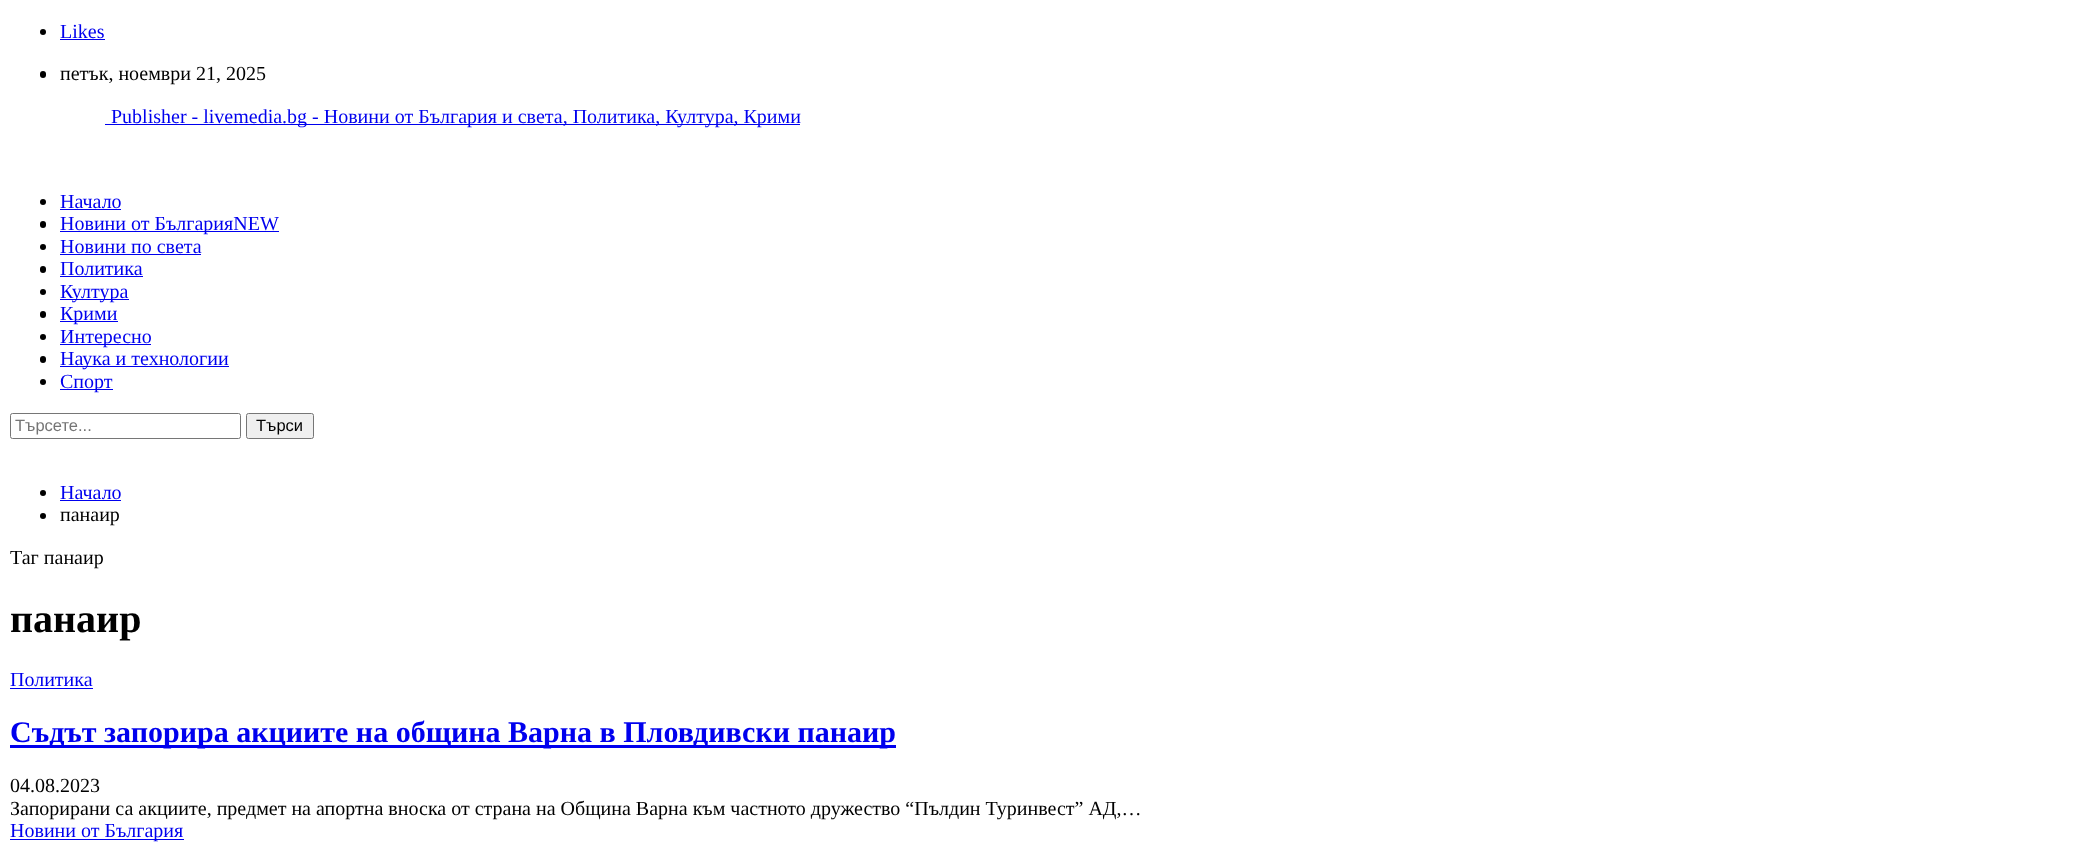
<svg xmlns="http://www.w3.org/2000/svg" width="2081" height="844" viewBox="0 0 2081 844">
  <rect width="100%" height="100%" fill="#ffffff"/>
  <circle cx="43" cy="32" r="3" fill="#000000"/>
  <text x="60" y="38" font-family="Liberation Serif" font-size="20" fill="#0000ee">Likes</text>
  <rect x="60" y="39" width="45" height="1" fill="#0000ee"/>
  <rect x="40" y="71" width="6" height="7" rx="3" fill="#000000"/>
  <text x="60" y="80" font-family="Liberation Serif" font-size="20" fill="#000000">петък, ноември 21, 2025</text>
  <rect x="105" y="124" width="695" height="1" fill="#0000ee"/>
  <text x="111" y="123" font-family="Liberation Serif" font-size="20" fill="#0000ee">Publisher - livemedia.bg - Новини от България и света, Политика, Култура, Крими</text>
  <circle cx="43" cy="202" r="3" fill="#000000"/>
  <text x="60" y="208" font-family="Liberation Serif" font-size="20" fill="#0000ee">Начало</text>
  <rect x="60" y="209" width="61" height="1" fill="#0000ee"/>
  <rect x="40" y="221" width="6" height="7" rx="3" fill="#000000"/>
  <rect x="60" y="231" width="219" height="1" fill="#0000ee"/>
  <text x="60" y="230" font-family="Liberation Serif" font-size="20" fill="#0000ee">Новини от БългарияNEW</text>
  <circle cx="43" cy="247" r="3" fill="#000000"/>
  <text x="60" y="253" font-family="Liberation Serif" font-size="20" fill="#0000ee">Новини по света</text>
  <rect x="60" y="254" width="141" height="1" fill="#0000ee"/>
  <rect x="40" y="266" width="6" height="7" rx="3" fill="#000000"/>
  <text x="60" y="275" font-family="Liberation Serif" font-size="20" fill="#0000ee">Политика</text>
  <rect x="60" y="276" width="83" height="1" fill="#0000ee"/>
  <circle cx="43" cy="292" r="3" fill="#000000"/>
  <rect x="60" y="299" width="69" height="1" fill="#0000ee"/>
  <text x="60" y="298" font-family="Liberation Serif" font-size="20" fill="#0000ee">Култура</text>
  <rect x="40" y="311" width="6" height="7" rx="3" fill="#000000"/>
  <rect x="60" y="321" width="58" height="1" fill="#0000ee"/>
  <text x="60" y="320" font-family="Liberation Serif" font-size="20" fill="#0000ee">Крими</text>
  <circle cx="43" cy="337" r="3" fill="#000000"/>
  <rect x="60" y="344" width="91" height="1" fill="#0000ee"/>
  <text x="60" y="343" font-family="Liberation Serif" font-size="20" fill="#0000ee">Интересно</text>
  <rect x="40" y="356" width="6" height="7" rx="3" fill="#000000"/>
  <rect x="60" y="366" width="169" height="1" fill="#0000ee"/>
  <text x="60" y="365" font-family="Liberation Serif" font-size="20" fill="#0000ee">Наука и технологии</text>
  <circle cx="43" cy="382" r="3" fill="#000000"/>
  <rect x="60" y="389" width="53" height="1" fill="#0000ee"/>
  <text x="60" y="388" font-family="Liberation Serif" font-size="20" fill="#0000ee">Спорт</text>
  <rect x="10.5" y="413.5" width="230" height="25" rx="2" fill="none" stroke="#767676"/>
  <text x="15" y="431" font-family="Liberation Sans" font-size="16.5" fill="#757575">Търсете...</text>
  <rect x="246.5" y="413.5" width="67" height="25" rx="2" fill="#efefef" stroke="#767676"/>
  <text x="256" y="431" font-family="Liberation Sans" font-size="16.5" fill="#000000">Търси</text>
  <circle cx="43" cy="493" r="3" fill="#000000"/>
  <text x="60" y="499" font-family="Liberation Serif" font-size="20" fill="#0000ee">Начало</text>
  <rect x="60" y="500" width="61" height="1" fill="#0000ee"/>
  <circle cx="43" cy="516" r="3" fill="#000000"/>
  <text x="60" y="521" font-family="Liberation Serif" font-size="20" fill="#000000">панаир</text>
  <text x="10" y="564" font-family="Liberation Serif" font-size="20" fill="#000000">Таг панаир</text>
  <text x="10" y="632" font-family="Liberation Serif" font-size="40" font-weight="bold" fill="#000000">панаир</text>
  <text x="10" y="686" font-family="Liberation Serif" font-size="20" fill="#0000ee">Политика</text>
  <rect x="10" y="688" width="83" height="1" fill="#0000ee"/>
  <rect x="10" y="745" width="886" height="3" fill="#0000ee"/>
  <text x="10" y="742" font-family="Liberation Serif" font-size="30" font-weight="bold" fill="#0000ee">Съдът запорира акциите на община Варна в Пловдивски панаир</text>
  <text x="10" y="792" font-family="Liberation Serif" font-size="20" fill="#000000">04.08.2023</text>
  <text x="10" y="815" font-family="Liberation Serif" font-size="20" fill="#000000">Запорирани са акциите, предмет на апортна вноска от страна на Община Варна към частното дружество “Пълдин Туринвест” АД,…</text>
  <rect x="10" y="839" width="174" height="1" fill="#0000ee"/>
  <text x="10" y="837" font-family="Liberation Serif" font-size="20" fill="#0000ee">Новини от България</text>
</svg>
